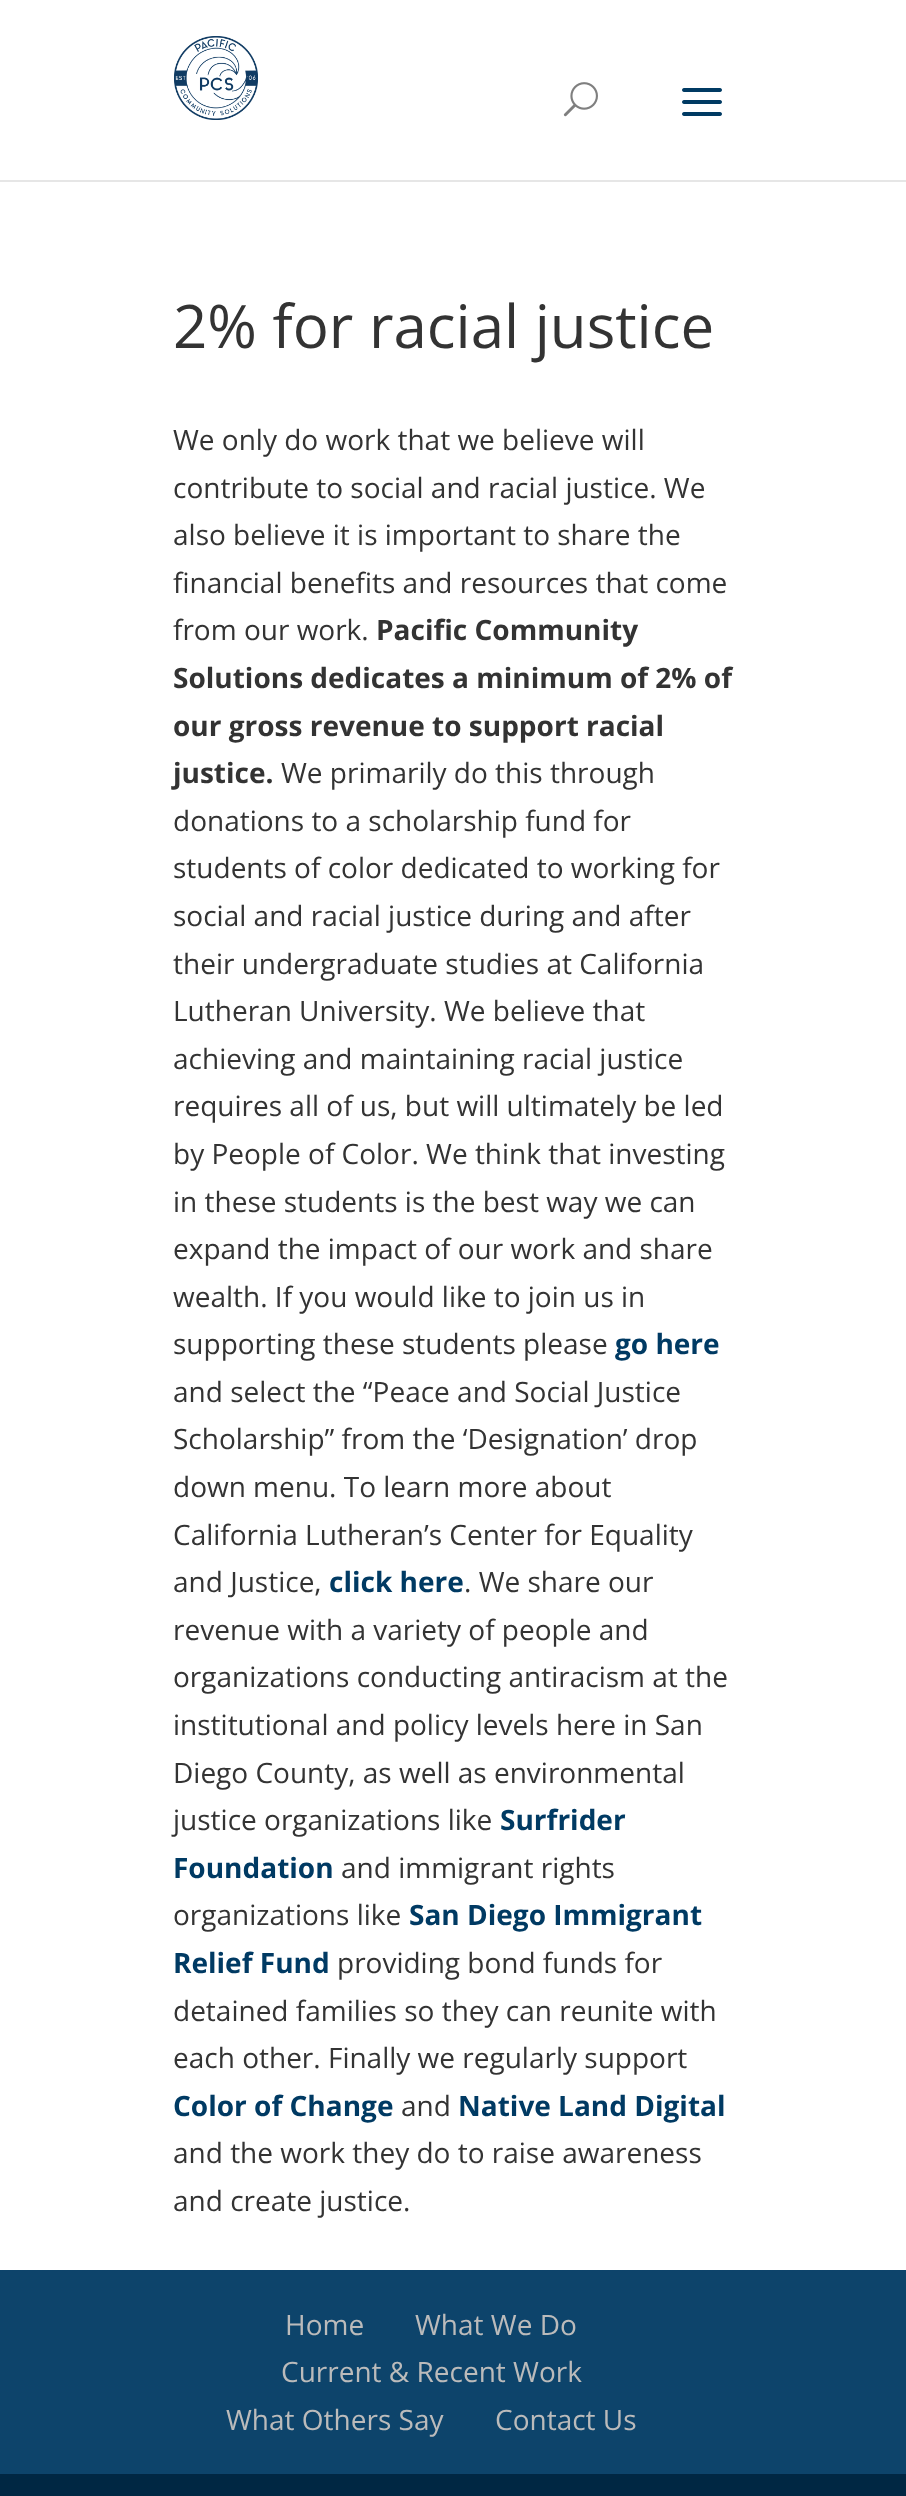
<svg xmlns="http://www.w3.org/2000/svg" width="906" height="2496" viewBox="0 0 906 2496">
  <rect width="100%" height="100%" fill="#ffffff"/>
  <rect x="0" y="180" width="906" height="2" fill="#e6e6e6"/>
  <image x="174" y="36" width="84" height="84" href="img1.png"/>
  <image x="563" y="82" width="35" height="35" href="img2.png"/>
  <image x="682" y="88" width="40" height="28" href="img3.png"/>
  <text x="173" y="348" font-family="Open Sans" font-size="60" fill="#333333">2% for racial justice</text>
  <text x="173" y="450" font-family="Open Sans" font-size="28" fill="#333333">We only do work that we believe will</text>
  <text x="173" y="498" font-family="Open Sans" font-size="28" fill="#333333">contribute to social and racial justice. We</text>
  <text x="173" y="545" font-family="Open Sans" font-size="28" fill="#333333">also believe it is important to share the</text>
  <text x="173" y="593" font-family="Open Sans" font-size="28" fill="#333333">financial benefits and resources that come</text>
  <text x="173" y="640" font-family="Open Sans" font-size="28" fill="#333333">from our work.</text>
  <text x="376" y="640" font-family="Open Sans" font-size="28" font-weight="bold" fill="#333333">Pacific Community</text>
  <text x="173" y="688" font-family="Open Sans" font-size="28" font-weight="bold" fill="#333333">Solutions dedicates a minimum of 2% of</text>
  <text x="173" y="736" font-family="Open Sans" font-size="28" font-weight="bold" fill="#333333">our gross revenue to support racial</text>
  <text x="173" y="783" font-family="Open Sans" font-size="28" font-weight="bold" fill="#333333">justice.</text>
  <text x="281" y="783" font-family="Open Sans" font-size="28" fill="#333333">We primarily do this through</text>
  <text x="173" y="831" font-family="Open Sans" font-size="28" fill="#333333">donations to a scholarship fund for</text>
  <text x="173" y="878" font-family="Open Sans" font-size="28" fill="#333333">students of color dedicated to working for</text>
  <text x="173" y="926" font-family="Open Sans" font-size="28" fill="#333333">social and racial justice during and after</text>
  <text x="173" y="974" font-family="Open Sans" font-size="28" fill="#333333">their undergraduate studies at California</text>
  <text x="173" y="1021" font-family="Open Sans" font-size="28" fill="#333333">Lutheran University. We believe that</text>
  <text x="173" y="1069" font-family="Open Sans" font-size="28" fill="#333333">achieving and maintaining racial justice</text>
  <text x="173" y="1116" font-family="Open Sans" font-size="28" fill="#333333">requires all of us, but will ultimately be led</text>
  <text x="173" y="1164" font-family="Open Sans" font-size="28" fill="#333333">by People of Color. We think that investing</text>
  <text x="173" y="1212" font-family="Open Sans" font-size="28" fill="#333333">in these students is the best way we can</text>
  <text x="173" y="1259" font-family="Open Sans" font-size="28" fill="#333333">expand the impact of our work and share</text>
  <text x="173" y="1307" font-family="Open Sans" font-size="28" fill="#333333">wealth. If you would like to join us in</text>
  <text x="173" y="1354" font-family="Open Sans" font-size="28" fill="#333333">supporting these students please</text>
  <text x="615" y="1354" font-family="Open Sans" font-size="28" font-weight="bold" fill="#003a63">go here</text>
  <text x="173" y="1402" font-family="Open Sans" font-size="28" fill="#333333">and select the “Peace and Social Justice</text>
  <text x="173" y="1449" font-family="Open Sans" font-size="28" fill="#333333">Scholarship” from the ‘Designation’ drop</text>
  <text x="173" y="1497" font-family="Open Sans" font-size="28" fill="#333333">down menu. To learn more about</text>
  <text x="173" y="1545" font-family="Open Sans" font-size="28" fill="#333333">California Lutheran’s Center for Equality</text>
  <text x="173" y="1592" font-family="Open Sans" font-size="28" fill="#333333">and Justice,</text>
  <text x="329" y="1592" font-family="Open Sans" font-size="28" font-weight="bold" fill="#003a63">click here</text>
  <text x="464" y="1592" font-family="Open Sans" font-size="28" fill="#333333">. We share our</text>
  <text x="173" y="1640" font-family="Open Sans" font-size="28" fill="#333333">revenue with a variety of people and</text>
  <text x="173" y="1687" font-family="Open Sans" font-size="28" fill="#333333">organizations conducting antiracism at the</text>
  <text x="173" y="1735" font-family="Open Sans" font-size="28" fill="#333333">institutional and policy levels here in San</text>
  <text x="173" y="1783" font-family="Open Sans" font-size="28" fill="#333333">Diego County, as well as environmental</text>
  <text x="173" y="1830" font-family="Open Sans" font-size="28" fill="#333333">justice organizations like</text>
  <text x="500" y="1830" font-family="Open Sans" font-size="28" font-weight="bold" fill="#003a63">Surfrider</text>
  <text x="173" y="1878" font-family="Open Sans" font-size="28" font-weight="bold" fill="#003a63">Foundation</text>
  <text x="341" y="1878" font-family="Open Sans" font-size="28" fill="#333333">and immigrant rights</text>
  <text x="173" y="1925" font-family="Open Sans" font-size="28" fill="#333333">organizations like</text>
  <text x="409" y="1925" font-family="Open Sans" font-size="28" font-weight="bold" fill="#003a63">San Diego Immigrant</text>
  <text x="173" y="1973" font-family="Open Sans" font-size="28" font-weight="bold" fill="#003a63">Relief Fund</text>
  <text x="337" y="1973" font-family="Open Sans" font-size="28" fill="#333333">providing bond funds for</text>
  <text x="173" y="2021" font-family="Open Sans" font-size="28" fill="#333333">detained families so they can reunite with</text>
  <text x="173" y="2068" font-family="Open Sans" font-size="28" fill="#333333">each other. Finally we regularly support</text>
  <text x="173" y="2116" font-family="Open Sans" font-size="28" font-weight="bold" fill="#003a63">Color of Change</text>
  <text x="401" y="2116" font-family="Open Sans" font-size="28" fill="#333333">and</text>
  <text x="458" y="2116" font-family="Open Sans" font-size="28" font-weight="bold" fill="#003a63">Native Land Digital</text>
  <text x="173" y="2163" font-family="Open Sans" font-size="28" fill="#333333">and the work they do to raise awareness</text>
  <text x="173" y="2211" font-family="Open Sans" font-size="28" fill="#333333">and create justice.</text>
  <rect x="0" y="2270" width="906" height="204" fill="#0d446b"/>
  <text x="285" y="2335" font-family="Open Sans" font-size="28" fill="#bbbbbb">Home</text>
  <text x="415" y="2335" font-family="Open Sans" font-size="28" fill="#bbbbbb">What We Do</text>
  <text x="281" y="2382" font-family="Open Sans" font-size="28" fill="#bbbbbb">Current &amp; Recent Work</text>
  <text x="226" y="2430" font-family="Open Sans" font-size="28" fill="#bbbbbb">What Others Say</text>
  <text x="495" y="2430" font-family="Open Sans" font-size="28" fill="#bbbbbb">Contact Us</text>
  <rect x="0" y="2474" width="906" height="22" fill="#002743"/>
</svg>
